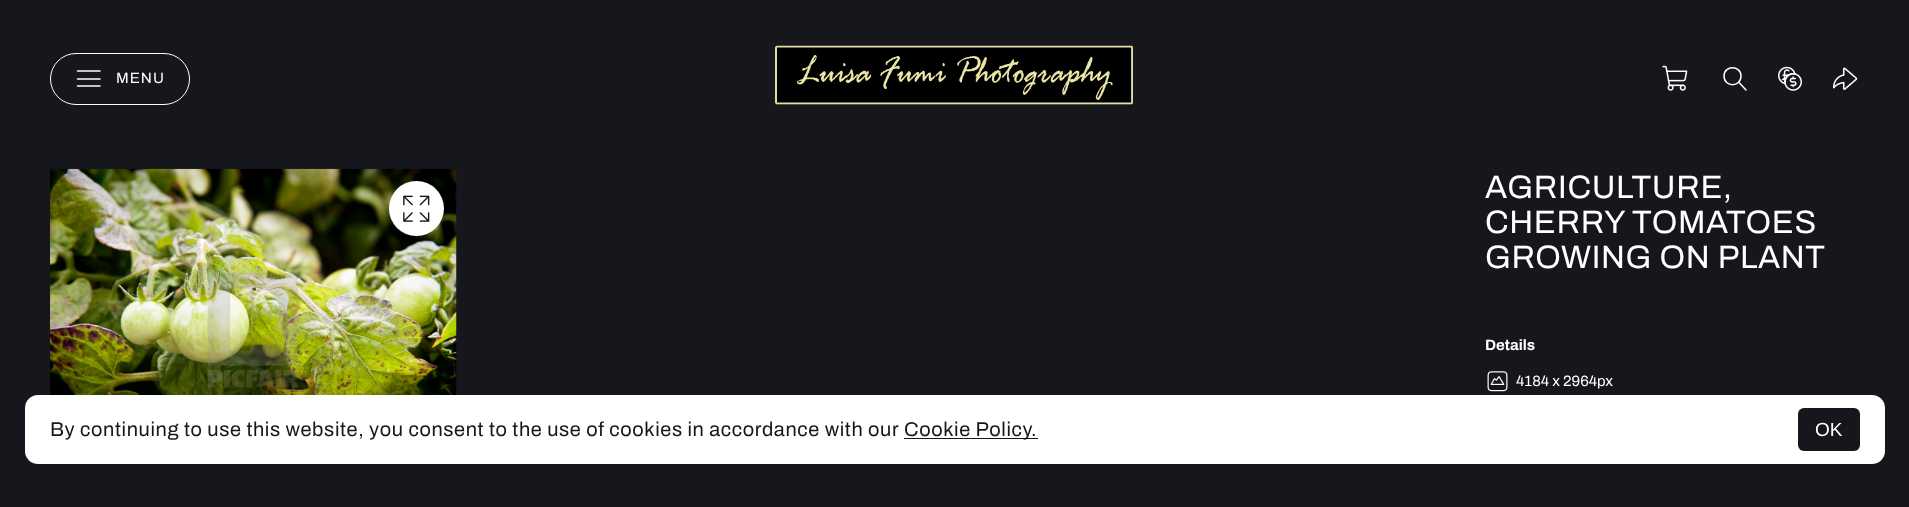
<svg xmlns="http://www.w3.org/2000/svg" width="1909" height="507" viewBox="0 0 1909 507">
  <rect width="100%" height="100%" fill="#16161d"/>
  <rect x="50.5" y="53.5" width="139" height="51" rx="25.5" fill="none" stroke="#ffffff"/>
  <path d="M77.5 79H100M77.5 71H100M77.5 86H100" fill="none" stroke="#ffffff" stroke-width="1.5" stroke-linecap="round" stroke-linejoin="round"/>
  <text x="116" y="83" font-family="Archivo" font-size="15" letter-spacing="1" fill="#ffffff">MENU</text>
  <image x="775" y="45" width="358" height="60" href="img1.png"/>
  <image x="1662" y="65" width="26" height="26" href="img2.png"/>
  <path d="M1746 90L1739 82.5M1741 76C1741 87.5 1724 87.5 1724 76C1724 65 1741 65 1741 76Z" fill="none" stroke="#ffffff" stroke-width="1.5" stroke-linecap="round" stroke-linejoin="round"/>
  <image x="1778" y="66" width="24" height="25" href="img3.png"/>
  <image x="1833" y="67" width="25" height="23" href="img4.png"/>
  <image x="50" y="168" width="407" height="227" href="img5.png"/>
  <circle cx="416.5" cy="208.5" r="27.5" fill="#ffffff"/>
  <image x="403" y="195" width="27" height="27" href="img6.png"/>
  <text x="1485" y="198" font-family="Archivo" font-size="32.5" letter-spacing="0.62" fill="#ffffff">AGRICULTURE,</text>
  <text x="1485" y="233" font-family="Archivo" font-size="32.5" letter-spacing="0.62" fill="#ffffff">CHERRY TOMATOES</text>
  <text x="1485" y="268" font-family="Archivo" font-size="32.5" letter-spacing="0.62" fill="#ffffff">GROWING ON PLANT</text>
  <text x="1485" y="350" font-family="Archivo" font-size="15" font-weight="bold" fill="#ffffff">Details</text>
  <image x="1487" y="371" width="21" height="21" href="img7.png"/>
  <text x="1516" y="386" font-family="Archivo" font-size="15" fill="#ffffff">4184 x 2964px</text>
  <rect x="25" y="395" width="1860" height="69" rx="13" fill="#ffffff"/>
  <text x="50" y="436" font-family="Archivo" font-size="20" letter-spacing="0.62" fill="#16161d">By continuing to use this website, you consent to the use of cookies in accordance with our</text>
  <rect x="904" y="438" width="134" height="1" fill="#16161d"/>
  <text x="904" y="436" font-family="Archivo" font-size="20" letter-spacing="0.62" fill="#16161d">Cookie Policy.</text>
  <rect x="1798" y="408" width="62" height="43" rx="6" fill="#16161d"/>
  <text x="1815" y="436" font-family="Liberation Sans" font-size="19" fill="#ffffff">OK</text>
</svg>
